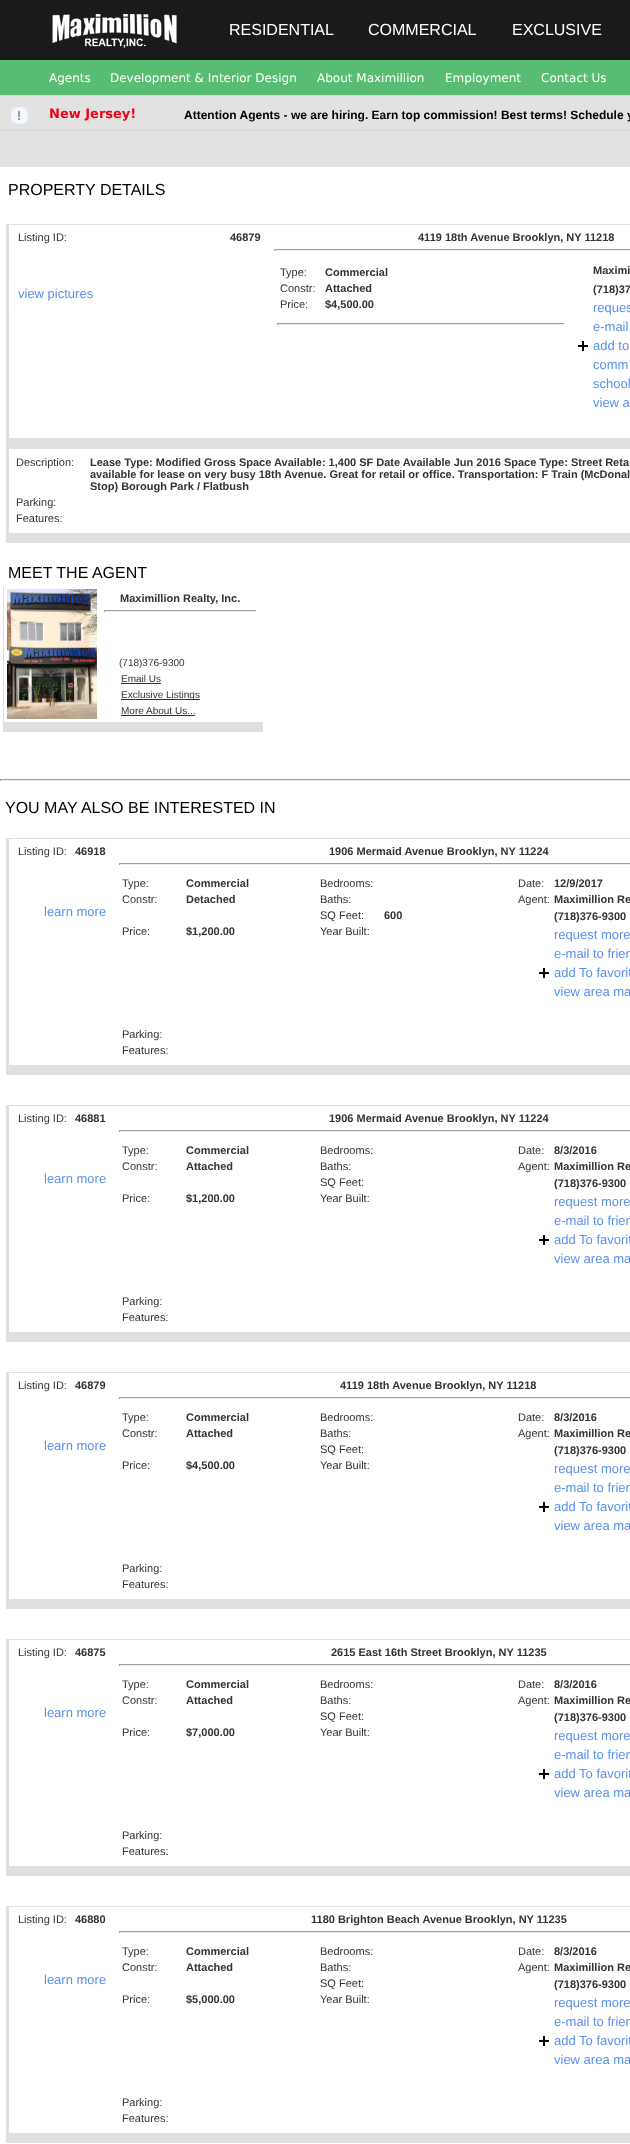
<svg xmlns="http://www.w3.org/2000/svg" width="630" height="2144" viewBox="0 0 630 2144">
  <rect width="100%" height="100%" fill="#e2e2e2"/>
  <rect x="0" y="0" width="630" height="60" fill="#1a1a1a"/>
  <image x="52" y="14" width="125" height="34" href="img1.png"/>
  <text x="229" y="35" font-family="Liberation Sans" font-size="16" fill="#ffffff">RESIDENTIAL</text>
  <text x="368" y="35" font-family="Liberation Sans" font-size="16" fill="#ffffff">COMMERCIAL</text>
  <text x="512" y="35" font-family="Liberation Sans" font-size="16" fill="#ffffff">EXCLUSIVE</text>
  <rect x="0" y="60" width="630" height="35" fill="#59bc73"/>
  <rect x="0" y="95" width="630" height="1" fill="#d7d7d7"/>
  <text x="49" y="82" font-family="DejaVu Sans" font-size="12" fill="#ffffff">Agents</text>
  <text x="110" y="82" font-family="DejaVu Sans" font-size="12" fill="#ffffff">Development &amp; Interior Design</text>
  <text x="317" y="82" font-family="DejaVu Sans" font-size="12" fill="#ffffff">About Maximillion</text>
  <text x="445" y="82" font-family="DejaVu Sans" font-size="12" fill="#ffffff">Employment</text>
  <text x="541" y="82" font-family="DejaVu Sans" font-size="12" fill="#ffffff">Contact Us</text>
  <text x="49" y="118" font-family="DejaVu Sans" font-size="13" font-weight="bold" fill="#ef0314">New Jersey!</text>
  <rect x="0" y="130" width="630" height="1" fill="#d7d7d7"/>
  <image x="11" y="107" width="17" height="17" href="img2.png"/>
  <text x="184" y="119" font-family="Liberation Sans" font-size="12" font-weight="bold" fill="#000000">Attention Agents - we are hiring. Earn top commission! Best terms! Schedule y</text>
  <rect x="0" y="167" width="630" height="1977" fill="#ffffff"/>
  <text x="8" y="195" font-family="Liberation Sans" font-size="16" fill="#000000">PROPERTY DETAILS</text>
  <rect x="6" y="224" width="624" height="1" fill="#e0e0e0"/>
  <rect x="9" y="438" width="621" height="10" fill="#e0e0e0"/>
  <rect x="6" y="224" width="3" height="224" fill="#e0e0e0"/>
  <text x="18" y="241" font-family="Liberation Sans" font-size="11" fill="#333333">Listing ID:</text>
  <text x="230" y="241" font-family="Liberation Sans" font-size="11" font-weight="bold" fill="#333333">46879</text>
  <text x="18" y="298" font-family="Liberation Sans" font-size="13" fill="#5a90ec">view pictures</text>
  <text x="418" y="241" font-family="Liberation Sans" font-size="11" font-weight="bold" fill="#333333">4119 18th Avenue Brooklyn, NY 11218</text>
  <rect x="274" y="249" width="356" height="1" fill="#9f9f9f"/>
  <rect x="274" y="250" width="356" height="1" fill="#eeeeee"/>
  <rect x="274" y="249" width="1" height="2" fill="#9f9f9f"/>
  <text x="280" y="276" font-family="Liberation Sans" font-size="11" fill="#333333">Type:</text>
  <text x="325" y="276" font-family="Liberation Sans" font-size="11" font-weight="bold" fill="#333333">Commercial</text>
  <text x="280" y="292" font-family="Liberation Sans" font-size="11" fill="#333333">Constr:</text>
  <text x="325" y="292" font-family="Liberation Sans" font-size="11" font-weight="bold" fill="#333333">Attached</text>
  <text x="280" y="308" font-family="Liberation Sans" font-size="11" fill="#333333">Price:</text>
  <text x="325" y="308" font-family="Liberation Sans" font-size="11" font-weight="bold" fill="#333333">$4,500.00</text>
  <rect x="277" y="323" width="288" height="1" fill="#9f9f9f"/>
  <rect x="564" y="323" width="1" height="2" fill="#eeeeee"/>
  <rect x="277" y="324" width="288" height="1" fill="#eeeeee"/>
  <rect x="277" y="323" width="1" height="2" fill="#9f9f9f"/>
  <text x="593" y="274" font-family="Liberation Sans" font-size="11" font-weight="bold" fill="#333333">Maximi</text>
  <text x="593" y="293" font-family="Liberation Sans" font-size="11" font-weight="bold" fill="#333333">(718)37</text>
  <text x="593" y="312" font-family="Liberation Sans" font-size="13" fill="#5a90ec">reques</text>
  <text x="593" y="331" font-family="Liberation Sans" font-size="13" fill="#5a90ec">e-mail</text>
  <image x="578" y="341" width="10" height="10" href="img3.png"/>
  <text x="593" y="350" font-family="Liberation Sans" font-size="13" fill="#5a90ec">add to</text>
  <text x="593" y="369" font-family="Liberation Sans" font-size="13" fill="#5a90ec">comm</text>
  <text x="593" y="388" font-family="Liberation Sans" font-size="13" fill="#5a90ec">school</text>
  <text x="593" y="407" font-family="Liberation Sans" font-size="13" fill="#5a90ec">view a</text>
  <rect x="6" y="448" width="624" height="1" fill="#e0e0e0"/>
  <rect x="9" y="533" width="621" height="10" fill="#e0e0e0"/>
  <rect x="6" y="448" width="3" height="95" fill="#e0e0e0"/>
  <text x="16" y="466" font-family="Liberation Sans" font-size="11" fill="#333333">Description:</text>
  <text x="90" y="466" font-family="Liberation Sans" font-size="11" font-weight="bold" fill="#333333">Lease Type: Modified Gross Space Available: 1,400 SF Date Available Jun 2016 Space Type: Street Reta</text>
  <text x="90" y="478" font-family="Liberation Sans" font-size="11" font-weight="bold" fill="#333333">available for lease on very busy 18th Avenue. Great for retail or office. Transportation: F Train (McDonal</text>
  <text x="90" y="490" font-family="Liberation Sans" font-size="11" font-weight="bold" fill="#333333">Stop) Borough Park / Flatbush</text>
  <text x="16" y="506" font-family="Liberation Sans" font-size="11" fill="#333333">Parking:</text>
  <text x="16" y="522" font-family="Liberation Sans" font-size="11" fill="#333333">Features:</text>
  <text x="8" y="578" font-family="Liberation Sans" font-size="16" fill="#000000">MEET THE AGENT</text>
  <rect x="4" y="722" width="259" height="10" fill="#e0e0e0"/>
  <rect x="3" y="586" width="1" height="146" fill="#e0e0e0"/>
  <image x="7" y="589" width="90" height="130" href="img4.png"/>
  <text x="120" y="602" font-family="Liberation Sans" font-size="11" font-weight="bold" fill="#333333">Maximillion Realty, Inc.</text>
  <rect x="104" y="610" width="153" height="1" fill="#9f9f9f"/>
  <rect x="256" y="610" width="1" height="2" fill="#eeeeee"/>
  <rect x="104" y="611" width="153" height="1" fill="#eeeeee"/>
  <rect x="104" y="610" width="1" height="2" fill="#9f9f9f"/>
  <text x="119" y="666" font-family="Liberation Sans" font-size="10" fill="#333333">(718)376-9300</text>
  <text x="121" y="682" font-family="Liberation Sans" font-size="10" fill="#333333">Email Us</text>
  <rect x="121" y="683" width="40" height="1" fill="#333333"/>
  <rect x="121" y="699" width="79" height="1" fill="#333333"/>
  <text x="121" y="698" font-family="Liberation Sans" font-size="10" fill="#333333">Exclusive Listings</text>
  <text x="121" y="714" font-family="Liberation Sans" font-size="10" fill="#333333">More About Us...</text>
  <rect x="121" y="715" width="74" height="1" fill="#333333"/>
  <rect x="0" y="779" width="630" height="1" fill="#9f9f9f"/>
  <rect x="0" y="780" width="630" height="1" fill="#eeeeee"/>
  <rect x="0" y="779" width="1" height="2" fill="#9f9f9f"/>
  <text x="5" y="813" font-family="Liberation Sans" font-size="16" fill="#000000">YOU MAY ALSO BE INTERESTED IN</text>
  <rect x="6" y="838" width="624" height="1" fill="#e0e0e0"/>
  <rect x="9" y="1065" width="621" height="10" fill="#e0e0e0"/>
  <rect x="6" y="838" width="3" height="237" fill="#e0e0e0"/>
  <text x="18" y="855" font-family="Liberation Sans" font-size="11" fill="#333333">Listing ID:</text>
  <text x="75" y="855" font-family="Liberation Sans" font-size="11" font-weight="bold" fill="#333333">46918</text>
  <text x="44" y="916" font-family="Liberation Sans" font-size="13" fill="#5a90ec">learn more</text>
  <text x="329" y="855" font-family="Liberation Sans" font-size="11" font-weight="bold" fill="#333333">1906 Mermaid Avenue Brooklyn, NY 11224</text>
  <rect x="119" y="863" width="511" height="1" fill="#9f9f9f"/>
  <rect x="119" y="864" width="511" height="1" fill="#eeeeee"/>
  <rect x="119" y="863" width="1" height="2" fill="#9f9f9f"/>
  <text x="122" y="887" font-family="Liberation Sans" font-size="11" fill="#333333">Type:</text>
  <text x="186" y="887" font-family="Liberation Sans" font-size="11" font-weight="bold" fill="#333333">Commercial</text>
  <text x="122" y="903" font-family="Liberation Sans" font-size="11" fill="#333333">Constr:</text>
  <text x="186" y="903" font-family="Liberation Sans" font-size="11" font-weight="bold" fill="#333333">Detached</text>
  <text x="122" y="935" font-family="Liberation Sans" font-size="11" fill="#333333">Price:</text>
  <text x="186" y="935" font-family="Liberation Sans" font-size="11" font-weight="bold" fill="#333333">$1,200.00</text>
  <text x="320" y="887" font-family="Liberation Sans" font-size="11" fill="#333333">Bedrooms:</text>
  <text x="320" y="903" font-family="Liberation Sans" font-size="11" fill="#333333">Baths:</text>
  <text x="320" y="919" font-family="Liberation Sans" font-size="11" fill="#333333">SQ Feet:</text>
  <text x="384" y="919" font-family="Liberation Sans" font-size="11" font-weight="bold" fill="#333333">600</text>
  <text x="320" y="935" font-family="Liberation Sans" font-size="11" fill="#333333">Year Built:</text>
  <text x="518" y="887" font-family="Liberation Sans" font-size="11" fill="#333333">Date:</text>
  <text x="554" y="887" font-family="Liberation Sans" font-size="11" font-weight="bold" fill="#333333">12/9/2017</text>
  <text x="518" y="903" font-family="Liberation Sans" font-size="11" fill="#333333">Agent:</text>
  <text x="554" y="903" font-family="Liberation Sans" font-size="11" font-weight="bold" fill="#333333">Maximillion Re</text>
  <text x="554" y="920" font-family="Liberation Sans" font-size="11" font-weight="bold" fill="#333333">(718)376-9300</text>
  <text x="554" y="939" font-family="Liberation Sans" font-size="13" fill="#5a90ec">request more</text>
  <text x="554" y="958" font-family="Liberation Sans" font-size="13" fill="#5a90ec">e-mail to frien</text>
  <image x="539" y="968" width="10" height="10" href="img3.png"/>
  <text x="554" y="977" font-family="Liberation Sans" font-size="13" fill="#5a90ec">add To favorit</text>
  <text x="554" y="996" font-family="Liberation Sans" font-size="13" fill="#5a90ec">view area ma</text>
  <text x="122" y="1038" font-family="Liberation Sans" font-size="11" fill="#333333">Parking:</text>
  <text x="122" y="1054" font-family="Liberation Sans" font-size="11" fill="#333333">Features:</text>
  <rect x="6" y="1105" width="624" height="1" fill="#e0e0e0"/>
  <rect x="9" y="1332" width="621" height="10" fill="#e0e0e0"/>
  <rect x="6" y="1105" width="3" height="237" fill="#e0e0e0"/>
  <text x="18" y="1122" font-family="Liberation Sans" font-size="11" fill="#333333">Listing ID:</text>
  <text x="75" y="1122" font-family="Liberation Sans" font-size="11" font-weight="bold" fill="#333333">46881</text>
  <text x="44" y="1183" font-family="Liberation Sans" font-size="13" fill="#5a90ec">learn more</text>
  <text x="329" y="1122" font-family="Liberation Sans" font-size="11" font-weight="bold" fill="#333333">1906 Mermaid Avenue Brooklyn, NY 11224</text>
  <rect x="119" y="1130" width="511" height="1" fill="#9f9f9f"/>
  <rect x="119" y="1131" width="511" height="1" fill="#eeeeee"/>
  <rect x="119" y="1130" width="1" height="2" fill="#9f9f9f"/>
  <text x="122" y="1154" font-family="Liberation Sans" font-size="11" fill="#333333">Type:</text>
  <text x="186" y="1154" font-family="Liberation Sans" font-size="11" font-weight="bold" fill="#333333">Commercial</text>
  <text x="122" y="1170" font-family="Liberation Sans" font-size="11" fill="#333333">Constr:</text>
  <text x="186" y="1170" font-family="Liberation Sans" font-size="11" font-weight="bold" fill="#333333">Attached</text>
  <text x="122" y="1202" font-family="Liberation Sans" font-size="11" fill="#333333">Price:</text>
  <text x="186" y="1202" font-family="Liberation Sans" font-size="11" font-weight="bold" fill="#333333">$1,200.00</text>
  <text x="320" y="1154" font-family="Liberation Sans" font-size="11" fill="#333333">Bedrooms:</text>
  <text x="320" y="1170" font-family="Liberation Sans" font-size="11" fill="#333333">Baths:</text>
  <text x="320" y="1186" font-family="Liberation Sans" font-size="11" fill="#333333">SQ Feet:</text>
  <text x="320" y="1202" font-family="Liberation Sans" font-size="11" fill="#333333">Year Built:</text>
  <text x="518" y="1154" font-family="Liberation Sans" font-size="11" fill="#333333">Date:</text>
  <text x="554" y="1154" font-family="Liberation Sans" font-size="11" font-weight="bold" fill="#333333">8/3/2016</text>
  <text x="518" y="1170" font-family="Liberation Sans" font-size="11" fill="#333333">Agent:</text>
  <text x="554" y="1170" font-family="Liberation Sans" font-size="11" font-weight="bold" fill="#333333">Maximillion Re</text>
  <text x="554" y="1187" font-family="Liberation Sans" font-size="11" font-weight="bold" fill="#333333">(718)376-9300</text>
  <text x="554" y="1206" font-family="Liberation Sans" font-size="13" fill="#5a90ec">request more</text>
  <text x="554" y="1225" font-family="Liberation Sans" font-size="13" fill="#5a90ec">e-mail to frien</text>
  <image x="539" y="1235" width="10" height="10" href="img3.png"/>
  <text x="554" y="1244" font-family="Liberation Sans" font-size="13" fill="#5a90ec">add To favorit</text>
  <text x="554" y="1263" font-family="Liberation Sans" font-size="13" fill="#5a90ec">view area ma</text>
  <text x="122" y="1305" font-family="Liberation Sans" font-size="11" fill="#333333">Parking:</text>
  <text x="122" y="1321" font-family="Liberation Sans" font-size="11" fill="#333333">Features:</text>
  <rect x="6" y="1372" width="624" height="1" fill="#e0e0e0"/>
  <rect x="9" y="1599" width="621" height="10" fill="#e0e0e0"/>
  <rect x="6" y="1372" width="3" height="237" fill="#e0e0e0"/>
  <text x="18" y="1389" font-family="Liberation Sans" font-size="11" fill="#333333">Listing ID:</text>
  <text x="75" y="1389" font-family="Liberation Sans" font-size="11" font-weight="bold" fill="#333333">46879</text>
  <text x="44" y="1450" font-family="Liberation Sans" font-size="13" fill="#5a90ec">learn more</text>
  <text x="340" y="1389" font-family="Liberation Sans" font-size="11" font-weight="bold" fill="#333333">4119 18th Avenue Brooklyn, NY 11218</text>
  <rect x="119" y="1397" width="511" height="1" fill="#9f9f9f"/>
  <rect x="119" y="1398" width="511" height="1" fill="#eeeeee"/>
  <rect x="119" y="1397" width="1" height="2" fill="#9f9f9f"/>
  <text x="122" y="1421" font-family="Liberation Sans" font-size="11" fill="#333333">Type:</text>
  <text x="186" y="1421" font-family="Liberation Sans" font-size="11" font-weight="bold" fill="#333333">Commercial</text>
  <text x="122" y="1437" font-family="Liberation Sans" font-size="11" fill="#333333">Constr:</text>
  <text x="186" y="1437" font-family="Liberation Sans" font-size="11" font-weight="bold" fill="#333333">Attached</text>
  <text x="122" y="1469" font-family="Liberation Sans" font-size="11" fill="#333333">Price:</text>
  <text x="186" y="1469" font-family="Liberation Sans" font-size="11" font-weight="bold" fill="#333333">$4,500.00</text>
  <text x="320" y="1421" font-family="Liberation Sans" font-size="11" fill="#333333">Bedrooms:</text>
  <text x="320" y="1437" font-family="Liberation Sans" font-size="11" fill="#333333">Baths:</text>
  <text x="320" y="1453" font-family="Liberation Sans" font-size="11" fill="#333333">SQ Feet:</text>
  <text x="320" y="1469" font-family="Liberation Sans" font-size="11" fill="#333333">Year Built:</text>
  <text x="518" y="1421" font-family="Liberation Sans" font-size="11" fill="#333333">Date:</text>
  <text x="554" y="1421" font-family="Liberation Sans" font-size="11" font-weight="bold" fill="#333333">8/3/2016</text>
  <text x="518" y="1437" font-family="Liberation Sans" font-size="11" fill="#333333">Agent:</text>
  <text x="554" y="1437" font-family="Liberation Sans" font-size="11" font-weight="bold" fill="#333333">Maximillion Re</text>
  <text x="554" y="1454" font-family="Liberation Sans" font-size="11" font-weight="bold" fill="#333333">(718)376-9300</text>
  <text x="554" y="1473" font-family="Liberation Sans" font-size="13" fill="#5a90ec">request more</text>
  <text x="554" y="1492" font-family="Liberation Sans" font-size="13" fill="#5a90ec">e-mail to frien</text>
  <image x="539" y="1502" width="10" height="10" href="img3.png"/>
  <text x="554" y="1511" font-family="Liberation Sans" font-size="13" fill="#5a90ec">add To favorit</text>
  <text x="554" y="1530" font-family="Liberation Sans" font-size="13" fill="#5a90ec">view area ma</text>
  <text x="122" y="1572" font-family="Liberation Sans" font-size="11" fill="#333333">Parking:</text>
  <text x="122" y="1588" font-family="Liberation Sans" font-size="11" fill="#333333">Features:</text>
  <rect x="6" y="1639" width="624" height="1" fill="#e0e0e0"/>
  <rect x="9" y="1866" width="621" height="10" fill="#e0e0e0"/>
  <rect x="6" y="1639" width="3" height="237" fill="#e0e0e0"/>
  <text x="18" y="1656" font-family="Liberation Sans" font-size="11" fill="#333333">Listing ID:</text>
  <text x="75" y="1656" font-family="Liberation Sans" font-size="11" font-weight="bold" fill="#333333">46875</text>
  <text x="44" y="1717" font-family="Liberation Sans" font-size="13" fill="#5a90ec">learn more</text>
  <text x="331" y="1656" font-family="Liberation Sans" font-size="11" font-weight="bold" fill="#333333">2615 East 16th Street Brooklyn, NY 11235</text>
  <rect x="119" y="1664" width="511" height="1" fill="#9f9f9f"/>
  <rect x="119" y="1665" width="511" height="1" fill="#eeeeee"/>
  <rect x="119" y="1664" width="1" height="2" fill="#9f9f9f"/>
  <text x="122" y="1688" font-family="Liberation Sans" font-size="11" fill="#333333">Type:</text>
  <text x="186" y="1688" font-family="Liberation Sans" font-size="11" font-weight="bold" fill="#333333">Commercial</text>
  <text x="122" y="1704" font-family="Liberation Sans" font-size="11" fill="#333333">Constr:</text>
  <text x="186" y="1704" font-family="Liberation Sans" font-size="11" font-weight="bold" fill="#333333">Attached</text>
  <text x="122" y="1736" font-family="Liberation Sans" font-size="11" fill="#333333">Price:</text>
  <text x="186" y="1736" font-family="Liberation Sans" font-size="11" font-weight="bold" fill="#333333">$7,000.00</text>
  <text x="320" y="1688" font-family="Liberation Sans" font-size="11" fill="#333333">Bedrooms:</text>
  <text x="320" y="1704" font-family="Liberation Sans" font-size="11" fill="#333333">Baths:</text>
  <text x="320" y="1720" font-family="Liberation Sans" font-size="11" fill="#333333">SQ Feet:</text>
  <text x="320" y="1736" font-family="Liberation Sans" font-size="11" fill="#333333">Year Built:</text>
  <text x="518" y="1688" font-family="Liberation Sans" font-size="11" fill="#333333">Date:</text>
  <text x="554" y="1688" font-family="Liberation Sans" font-size="11" font-weight="bold" fill="#333333">8/3/2016</text>
  <text x="518" y="1704" font-family="Liberation Sans" font-size="11" fill="#333333">Agent:</text>
  <text x="554" y="1704" font-family="Liberation Sans" font-size="11" font-weight="bold" fill="#333333">Maximillion Re</text>
  <text x="554" y="1721" font-family="Liberation Sans" font-size="11" font-weight="bold" fill="#333333">(718)376-9300</text>
  <text x="554" y="1740" font-family="Liberation Sans" font-size="13" fill="#5a90ec">request more</text>
  <text x="554" y="1759" font-family="Liberation Sans" font-size="13" fill="#5a90ec">e-mail to frien</text>
  <image x="539" y="1769" width="10" height="10" href="img3.png"/>
  <text x="554" y="1778" font-family="Liberation Sans" font-size="13" fill="#5a90ec">add To favorit</text>
  <text x="554" y="1797" font-family="Liberation Sans" font-size="13" fill="#5a90ec">view area ma</text>
  <text x="122" y="1839" font-family="Liberation Sans" font-size="11" fill="#333333">Parking:</text>
  <text x="122" y="1855" font-family="Liberation Sans" font-size="11" fill="#333333">Features:</text>
  <rect x="6" y="1906" width="624" height="1" fill="#e0e0e0"/>
  <rect x="9" y="2133" width="621" height="10" fill="#e0e0e0"/>
  <rect x="6" y="1906" width="3" height="237" fill="#e0e0e0"/>
  <text x="18" y="1923" font-family="Liberation Sans" font-size="11" fill="#333333">Listing ID:</text>
  <text x="75" y="1923" font-family="Liberation Sans" font-size="11" font-weight="bold" fill="#333333">46880</text>
  <text x="44" y="1984" font-family="Liberation Sans" font-size="13" fill="#5a90ec">learn more</text>
  <text x="311" y="1923" font-family="Liberation Sans" font-size="11" font-weight="bold" fill="#333333">1180 Brighton Beach Avenue Brooklyn, NY 11235</text>
  <rect x="119" y="1931" width="511" height="1" fill="#9f9f9f"/>
  <rect x="119" y="1932" width="511" height="1" fill="#eeeeee"/>
  <rect x="119" y="1931" width="1" height="2" fill="#9f9f9f"/>
  <text x="122" y="1955" font-family="Liberation Sans" font-size="11" fill="#333333">Type:</text>
  <text x="186" y="1955" font-family="Liberation Sans" font-size="11" font-weight="bold" fill="#333333">Commercial</text>
  <text x="122" y="1971" font-family="Liberation Sans" font-size="11" fill="#333333">Constr:</text>
  <text x="186" y="1971" font-family="Liberation Sans" font-size="11" font-weight="bold" fill="#333333">Attached</text>
  <text x="122" y="2003" font-family="Liberation Sans" font-size="11" fill="#333333">Price:</text>
  <text x="186" y="2003" font-family="Liberation Sans" font-size="11" font-weight="bold" fill="#333333">$5,000.00</text>
  <text x="320" y="1955" font-family="Liberation Sans" font-size="11" fill="#333333">Bedrooms:</text>
  <text x="320" y="1971" font-family="Liberation Sans" font-size="11" fill="#333333">Baths:</text>
  <text x="320" y="1987" font-family="Liberation Sans" font-size="11" fill="#333333">SQ Feet:</text>
  <text x="320" y="2003" font-family="Liberation Sans" font-size="11" fill="#333333">Year Built:</text>
  <text x="518" y="1955" font-family="Liberation Sans" font-size="11" fill="#333333">Date:</text>
  <text x="554" y="1955" font-family="Liberation Sans" font-size="11" font-weight="bold" fill="#333333">8/3/2016</text>
  <text x="518" y="1971" font-family="Liberation Sans" font-size="11" fill="#333333">Agent:</text>
  <text x="554" y="1971" font-family="Liberation Sans" font-size="11" font-weight="bold" fill="#333333">Maximillion Re</text>
  <text x="554" y="1988" font-family="Liberation Sans" font-size="11" font-weight="bold" fill="#333333">(718)376-9300</text>
  <text x="554" y="2007" font-family="Liberation Sans" font-size="13" fill="#5a90ec">request more</text>
  <text x="554" y="2026" font-family="Liberation Sans" font-size="13" fill="#5a90ec">e-mail to frien</text>
  <image x="539" y="2036" width="10" height="10" href="img3.png"/>
  <text x="554" y="2045" font-family="Liberation Sans" font-size="13" fill="#5a90ec">add To favorit</text>
  <text x="554" y="2064" font-family="Liberation Sans" font-size="13" fill="#5a90ec">view area ma</text>
  <text x="122" y="2106" font-family="Liberation Sans" font-size="11" fill="#333333">Parking:</text>
  <text x="122" y="2122" font-family="Liberation Sans" font-size="11" fill="#333333">Features:</text>
</svg>
